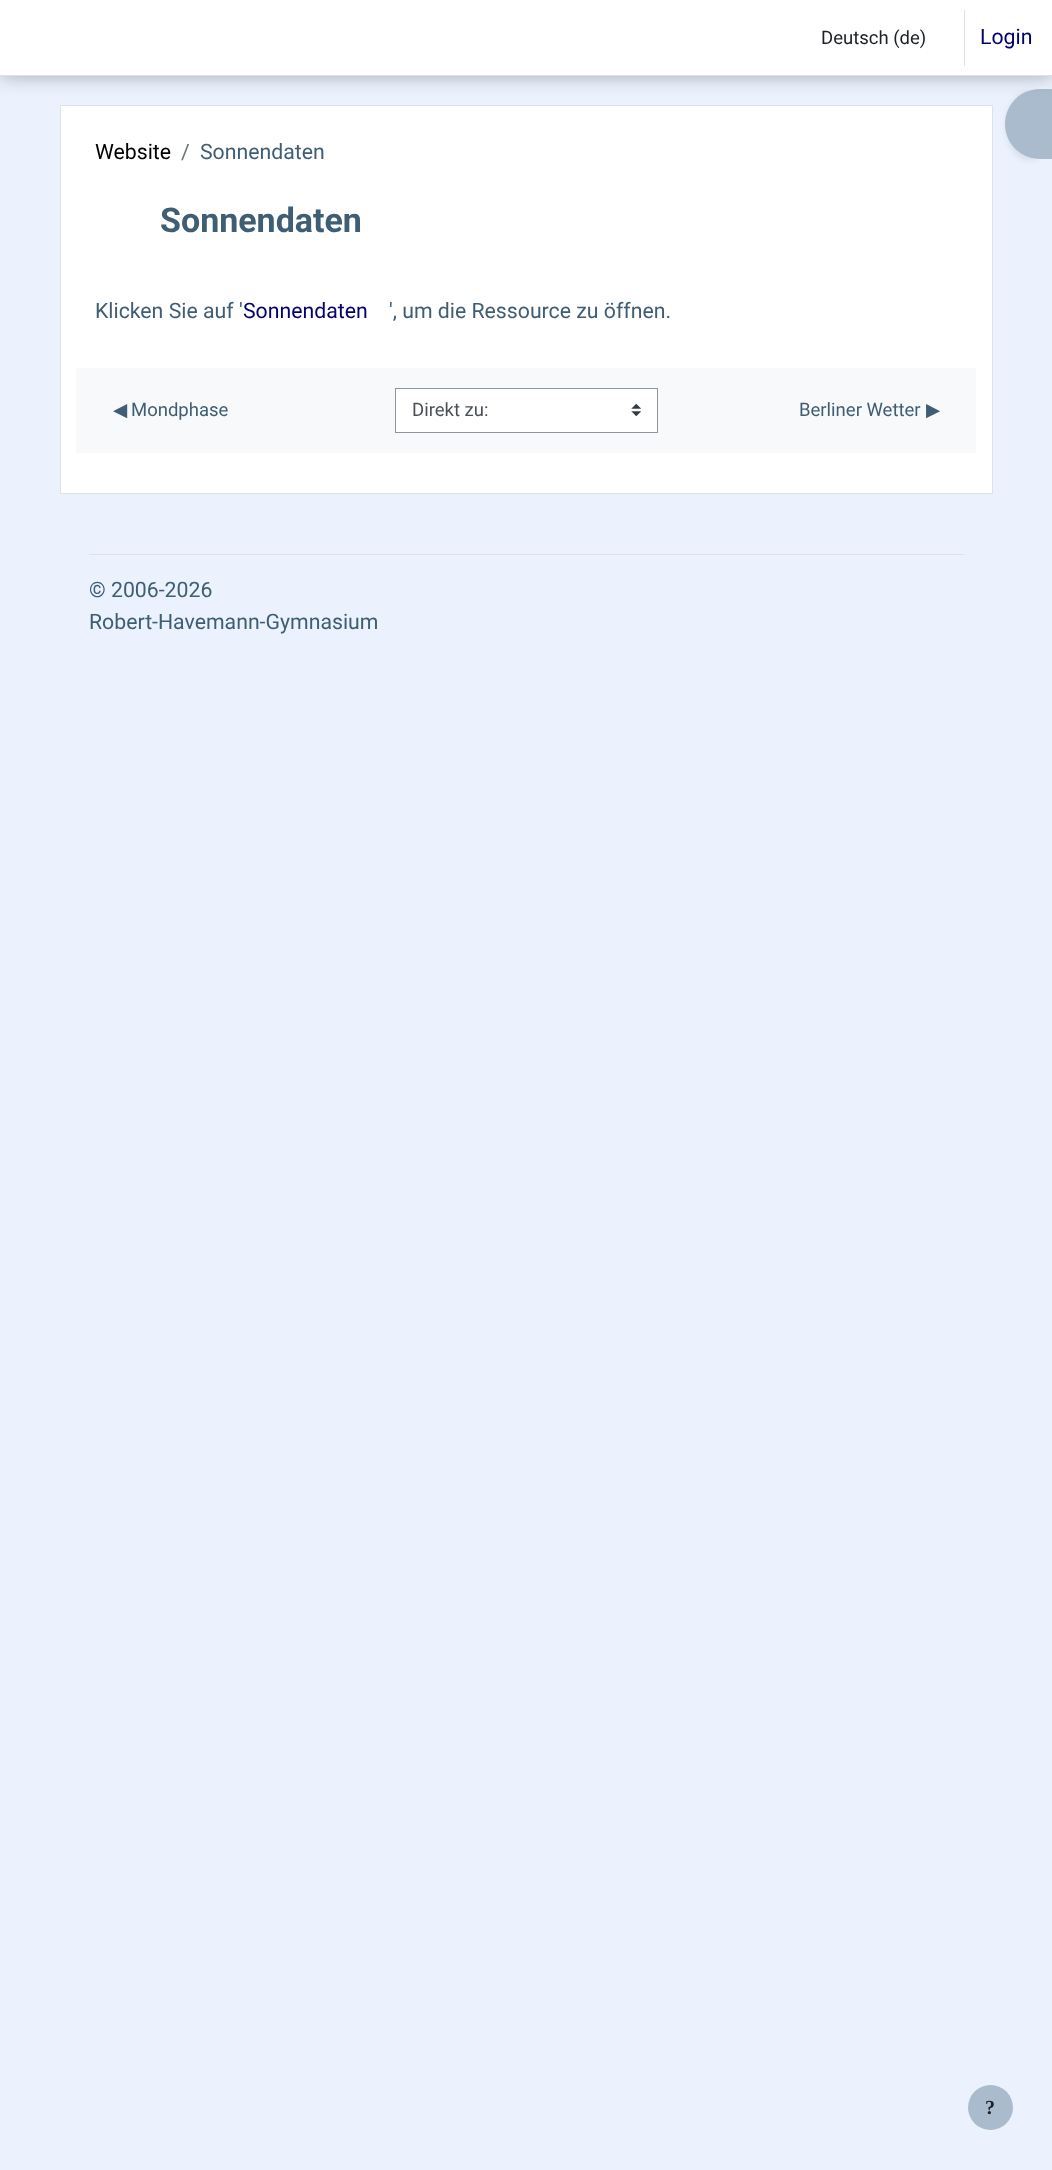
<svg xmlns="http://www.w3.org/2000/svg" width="1052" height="2170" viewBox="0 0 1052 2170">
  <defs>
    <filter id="blur1" x="-50%" y="-200%" width="200%" height="500%"><feGaussianBlur stdDeviation="2.5"/></filter>
    <filter id="blur2" x="-50%" y="-200%" width="200%" height="500%"><feGaussianBlur stdDeviation="9.5"/></filter>
  </defs>
  <rect width="100%" height="100%" fill="#ebf2fe"/>
  <rect x="60.5" y="105.5" width="932" height="388" fill="#ffffff" stroke="#dee2e6"/>
  <rect x="1005" y="91" width="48" height="70" rx="35" fill="#000000" fill-opacity="0.07" filter="url(#blur1)"/>
  <path d="M1040 89H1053V159H1040C1020.5 159 1005 143.5 1005 124C1005 104.5 1020.5 89 1040 89Z" fill="#aabbcd"/>
  <rect x="0" y="0" width="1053" height="76" fill="#000000" fill-opacity="0.3" filter="url(#blur2)"/>
  <rect x="0" y="0" width="1052" height="75" fill="#ffffff"/>
  <rect x="0" y="75" width="1052" height="1" fill="#dee2e6"/>
  <text x="821" y="44" font-family="Roboto" font-size="18.5" fill="#1d2125">Deutsch (de)</text>
  <rect x="964" y="10" width="1" height="56" fill="#dee2e6"/>
  <text x="980" y="44" font-family="Roboto" font-size="21.25" fill="#02026e">Login</text>
  <text x="95" y="159" font-family="Roboto" font-size="21.25" fill="#000000">Website</text>
  <text x="181" y="159" font-family="Roboto" font-size="21.25" fill="#6a737b">/</text>
  <text x="200" y="159" font-family="Roboto" font-size="21.25" fill="#3f5e74">Sonnendaten</text>
  <text x="160" y="232" font-family="Roboto" font-size="34" font-weight="bold" fill="#3f5e74">Sonnendaten</text>
  <text x="95" y="318" font-family="Roboto" font-size="21.25" fill="#3f5e74">Klicken Sie auf '</text>
  <text x="243" y="318" font-family="Roboto" font-size="21.25" fill="#02026e">Sonnendaten</text>
  <text x="389" y="318" font-family="Roboto" font-size="21.25" fill="#3f5e74">', um die Ressource zu öffnen.</text>
  <rect x="76" y="368" width="900" height="85" fill="#f8f9fa"/>
  <text x="113" y="416" font-family="DejaVu Sans" font-size="18.5" fill="#3f5e74">◀︎</text>
  <text x="131" y="416" font-family="Roboto" font-size="18.5" fill="#3f5e74">Mondphase</text>
  <rect x="396" y="389" width="261" height="43" fill="#ffffff"/>
  <image x="631" y="404" width="10" height="12" href="img1.png"/>
  <rect x="395.5" y="388.5" width="262" height="44" fill="none" stroke="#8f959e"/>
  <text x="412" y="416" font-family="Roboto" font-size="18.5" fill="#495057">Direkt zu:</text>
  <text x="799" y="416" font-family="Roboto" font-size="18.5" fill="#3f5e74">Berliner Wetter</text>
  <text x="926" y="416" font-family="DejaVu Sans" font-size="18.5" fill="#3f5e74">▶︎</text>
  <rect x="89" y="554" width="875" height="1" fill="#dee2e6"/>
  <text x="89" y="597" font-family="Roboto" font-size="21.25" fill="#3f5e74">© 2006-2026</text>
  <text x="89" y="629" font-family="Roboto" font-size="21.25" fill="#3f5e74">Robert-Havemann-Gymnasium</text>
  <circle cx="990.5" cy="2107.5" r="22.5" fill="#aabbcd"/>
  <text x="985" y="2114" font-family="Liberation Serif" font-size="20" font-weight="bold" fill="#1d2125">?</text>
</svg>
